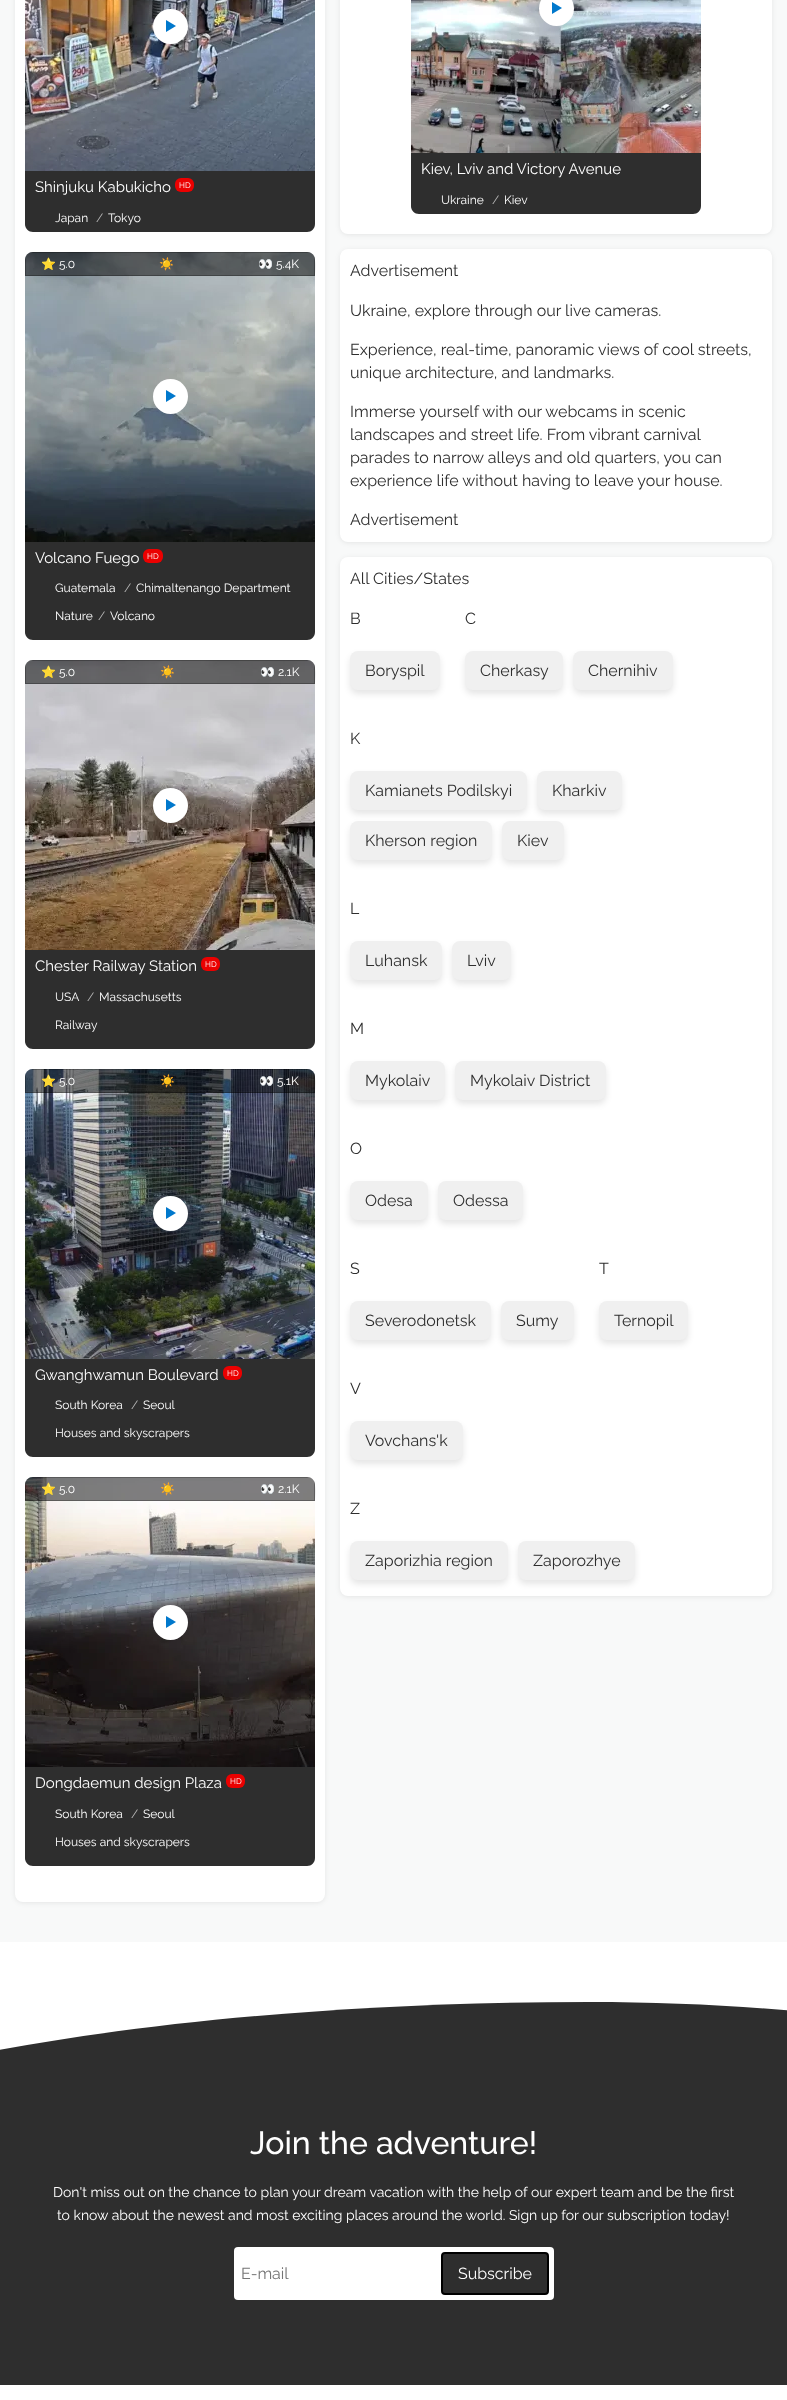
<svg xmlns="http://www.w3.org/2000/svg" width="787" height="2400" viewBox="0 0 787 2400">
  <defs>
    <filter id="blur1" x="-50%" y="-200%" width="200%" height="500%"><feGaussianBlur stdDeviation="2.5"/></filter>
    <filter id="blur2" x="-50%" y="-200%" width="200%" height="500%"><feGaussianBlur stdDeviation="3"/></filter>
  </defs>
  <rect width="100%" height="100%" fill="#ffffff"/>
  <rect x="0" y="0" width="787" height="1942" fill="#f8f9f9"/>
  <rect x="15" y="-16" width="310" height="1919" rx="8" fill="#000000" fill-opacity="0.08" filter="url(#blur1)"/>
  <rect x="15" y="-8" width="310" height="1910" rx="8" fill="#ffffff"/>
  <image x="25" y="0" width="290" height="171" href="img1.png"/>
  <circle cx="170.5" cy="26.5" r="17.5" fill="#ffffff"/>
  <path d="M166 32V20L176 26Z" fill="#0078cc"/>
  <path d="M25 171H315V224C315 228.5 311.5 232 307 232H33C28.5 232 25 228.5 25 224Z" fill="#2e2e2e"/>
  <text x="35" y="192" font-family="Raleway" font-size="15" fill="#ffffff">Shinjuku Kabukicho</text>
  <rect x="175" y="178" width="19" height="14" rx="6" fill="#eb0000"/>
  <text x="179" y="188" font-family="Raleway" font-size="8" fill="#ffffff">HD</text>
  <text x="55" y="222" font-family="Raleway" font-size="12" fill="#ffffff">Japan</text>
  <text x="96" y="222" font-family="Raleway" font-size="12" fill="#bbbbbb">/</text>
  <text x="108" y="222" font-family="Raleway" font-size="12" fill="#ffffff">Tokyo</text>
  <image x="25" y="252" width="290" height="290" href="img2.png"/>
  <circle cx="170.5" cy="396.5" r="17.5" fill="#ffffff"/>
  <path d="M166 402V390L176 396Z" fill="#0078cc"/>
  <path d="M33 252H307C311.5 252 315 255.5 315 260V276H25V260C25 255.5 28.5 252 33 252Z" fill="#000000" fill-opacity="0.5"/>
  <path d="M25 260V276H315C315 271 316 260 314 256V275H26V256ZM33 252L29 253H311L307 252Z" fill="#000000" fill-opacity="0.25" fill-rule="evenodd"/>
  <text x="41" y="268" font-family="Noto Color Emoji" font-size="12" fill="#ffffff">⭐</text>
  <text x="59" y="268" font-family="Raleway" font-size="12" fill="#ffffff">5.0</text>
  <text x="159" y="268" font-family="Noto Color Emoji" font-size="12" fill="#ffffff">☀️</text>
  <text x="258" y="268" font-family="Noto Color Emoji" font-size="12" fill="#ffffff">👀</text>
  <text x="276" y="268" font-family="Raleway" font-size="12" fill="#ffffff">5.4K</text>
  <path d="M25 542H315V632C315 636.5 311.5 640 307 640H33C28.5 640 25 636.5 25 632Z" fill="#2e2e2e"/>
  <text x="35" y="563" font-family="Raleway" font-size="15" fill="#ffffff">Volcano Fuego</text>
  <rect x="143" y="549" width="20" height="14" rx="6" fill="#eb0000"/>
  <text x="147" y="559" font-family="Raleway" font-size="8" fill="#ffffff">HD</text>
  <text x="55" y="592" font-family="Raleway" font-size="12" fill="#ffffff">Guatemala</text>
  <text x="124" y="592" font-family="Raleway" font-size="12" fill="#bbbbbb">/</text>
  <text x="136" y="592" font-family="Raleway" font-size="12" fill="#ffffff">Chimaltenango Department</text>
  <text x="55" y="620" font-family="Raleway" font-size="12" fill="#ffffff">Nature</text>
  <text x="98" y="620" font-family="Raleway" font-size="12" fill="#bbbbbb">/</text>
  <text x="110" y="620" font-family="Raleway" font-size="12" fill="#ffffff">Volcano</text>
  <image x="25" y="660" width="290" height="290" href="img3.png"/>
  <circle cx="170.5" cy="805.5" r="17.5" fill="#ffffff"/>
  <path d="M166 811V799L176 805Z" fill="#0078cc"/>
  <path d="M33 660H307C311.5 660 315 663.5 315 668V684H25V668C25 663.5 28.5 660 33 660Z" fill="#000000" fill-opacity="0.5"/>
  <path d="M25 668V684H315C315 679 316 668 314 664V683H26V664ZM33 660L29 661H311L307 660Z" fill="#000000" fill-opacity="0.25" fill-rule="evenodd"/>
  <text x="41" y="676" font-family="Noto Color Emoji" font-size="12" fill="#ffffff">⭐</text>
  <text x="59" y="676" font-family="Raleway" font-size="12" fill="#ffffff">5.0</text>
  <text x="160" y="676" font-family="Noto Color Emoji" font-size="12" fill="#ffffff">☀️</text>
  <text x="260" y="676" font-family="Noto Color Emoji" font-size="12" fill="#ffffff">👀</text>
  <text x="278" y="676" font-family="Raleway" font-size="12" fill="#ffffff">2.1K</text>
  <path d="M25 950H315V1041C315 1045.5 311.5 1049 307 1049H33C28.5 1049 25 1045.5 25 1041Z" fill="#2e2e2e"/>
  <text x="35" y="971" font-family="Raleway" font-size="15" fill="#ffffff">Chester Railway Station</text>
  <rect x="201" y="957" width="19" height="14" rx="6" fill="#eb0000"/>
  <text x="205" y="967" font-family="Raleway" font-size="8" fill="#ffffff">HD</text>
  <text x="55" y="1001" font-family="Raleway" font-size="12" fill="#ffffff">USA</text>
  <text x="87" y="1001" font-family="Raleway" font-size="12" fill="#bbbbbb">/</text>
  <text x="99" y="1001" font-family="Raleway" font-size="12" fill="#ffffff">Massachusetts</text>
  <text x="55" y="1029" font-family="Raleway" font-size="12" fill="#ffffff">Railway</text>
  <image x="25" y="1069" width="290" height="290" href="img4.png"/>
  <circle cx="170.5" cy="1213.5" r="17.5" fill="#ffffff"/>
  <path d="M166 1219V1207L176 1213Z" fill="#0078cc"/>
  <path d="M33 1069H307C311.5 1069 315 1072.5 315 1077V1093H25V1077C25 1072.5 28.5 1069 33 1069Z" fill="#000000" fill-opacity="0.5"/>
  <path d="M25 1077V1093H315C315 1088 316 1077 314 1073V1092H26V1073ZM33 1069L29 1070H311L307 1069Z" fill="#000000" fill-opacity="0.25" fill-rule="evenodd"/>
  <text x="41" y="1085" font-family="Noto Color Emoji" font-size="12" fill="#ffffff">⭐</text>
  <text x="59" y="1085" font-family="Raleway" font-size="12" fill="#ffffff">5.0</text>
  <text x="160" y="1085" font-family="Noto Color Emoji" font-size="12" fill="#ffffff">☀️</text>
  <text x="259" y="1085" font-family="Noto Color Emoji" font-size="12" fill="#ffffff">👀</text>
  <text x="277" y="1085" font-family="Raleway" font-size="12" fill="#ffffff">5.1K</text>
  <path d="M25 1359H315V1449C315 1453.5 311.5 1457 307 1457H33C28.5 1457 25 1453.5 25 1449Z" fill="#2e2e2e"/>
  <text x="35" y="1380" font-family="Raleway" font-size="15" fill="#ffffff">Gwanghwamun Boulevard</text>
  <rect x="223" y="1366" width="19" height="14" rx="6" fill="#eb0000"/>
  <text x="227" y="1376" font-family="Raleway" font-size="8" fill="#ffffff">HD</text>
  <text x="55" y="1409" font-family="Raleway" font-size="12" fill="#ffffff">South Korea</text>
  <text x="131" y="1409" font-family="Raleway" font-size="12" fill="#bbbbbb">/</text>
  <text x="143" y="1409" font-family="Raleway" font-size="12" fill="#ffffff">Seoul</text>
  <text x="55" y="1437" font-family="Raleway" font-size="12" fill="#ffffff">Houses and skyscrapers</text>
  <image x="25" y="1477" width="290" height="290" href="img5.png"/>
  <circle cx="170.5" cy="1622.5" r="17.5" fill="#ffffff"/>
  <path d="M166 1628V1616L176 1622Z" fill="#0078cc"/>
  <path d="M33 1477H307C311.5 1477 315 1480.5 315 1485V1501H25V1485C25 1480.5 28.5 1477 33 1477Z" fill="#000000" fill-opacity="0.5"/>
  <path d="M25 1485V1501H315C315 1496 316 1485 314 1481V1500H26V1481ZM33 1477L29 1478H311L307 1477Z" fill="#000000" fill-opacity="0.25" fill-rule="evenodd"/>
  <text x="41" y="1493" font-family="Noto Color Emoji" font-size="12" fill="#ffffff">⭐</text>
  <text x="59" y="1493" font-family="Raleway" font-size="12" fill="#ffffff">5.0</text>
  <text x="160" y="1493" font-family="Noto Color Emoji" font-size="12" fill="#ffffff">☀️</text>
  <text x="260" y="1493" font-family="Noto Color Emoji" font-size="12" fill="#ffffff">👀</text>
  <text x="278" y="1493" font-family="Raleway" font-size="12" fill="#ffffff">2.1K</text>
  <path d="M25 1767H315V1858C315 1862.5 311.5 1866 307 1866H33C28.5 1866 25 1862.5 25 1858Z" fill="#2e2e2e"/>
  <text x="35" y="1788" font-family="Raleway" font-size="15" fill="#ffffff">Dongdaemun design Plaza</text>
  <rect x="226" y="1774" width="19" height="14" rx="6" fill="#eb0000"/>
  <text x="230" y="1784" font-family="Raleway" font-size="8" fill="#ffffff">HD</text>
  <text x="55" y="1818" font-family="Raleway" font-size="12" fill="#ffffff">South Korea</text>
  <text x="131" y="1818" font-family="Raleway" font-size="12" fill="#bbbbbb">/</text>
  <text x="143" y="1818" font-family="Raleway" font-size="12" fill="#ffffff">Seoul</text>
  <text x="55" y="1846" font-family="Raleway" font-size="12" fill="#ffffff">Houses and skyscrapers</text>
  <rect x="340" y="-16" width="432" height="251" rx="8" fill="#000000" fill-opacity="0.08" filter="url(#blur1)"/>
  <rect x="340" y="-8" width="432" height="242" rx="8" fill="#ffffff"/>
  <image x="411" y="0" width="290" height="153" href="img6.png"/>
  <circle cx="556.5" cy="8.5" r="17.5" fill="#ffffff"/>
  <path d="M552 14V2L562 8Z" fill="#0078cc"/>
  <path d="M411 153H701V206C701 210.5 697.5 214 693 214H419C414.5 214 411 210.5 411 206Z" fill="#2e2e2e"/>
  <text x="421" y="174" font-family="Raleway" font-size="15" fill="#ffffff">Kiev, Lviv and Victory Avenue</text>
  <text x="441" y="204" font-family="Raleway" font-size="12" fill="#ffffff">Ukraine</text>
  <text x="492" y="204" font-family="Raleway" font-size="12" fill="#bbbbbb">/</text>
  <text x="504" y="204" font-family="Raleway" font-size="12" fill="#ffffff">Kiev</text>
  <rect x="340" y="250" width="432" height="293" rx="8" fill="#000000" fill-opacity="0.08" filter="url(#blur1)"/>
  <rect x="340" y="249" width="432" height="293" rx="8" fill="#ffffff"/>
  <text x="350" y="276" font-family="Raleway" font-size="16" fill="#2e2e2e">Advertisement</text>
  <text x="350" y="316" font-family="Raleway" font-size="16" fill="#2e2e2e">Ukraine, explore through our live cameras.</text>
  <text x="350" y="355" font-family="Raleway" font-size="16" fill="#2e2e2e">Experience, real-time, panoramic views of cool streets,</text>
  <text x="350" y="378" font-family="Raleway" font-size="16" fill="#2e2e2e">unique architecture, and landmarks.</text>
  <text x="350" y="417" font-family="Raleway" font-size="16" fill="#2e2e2e">Immerse yourself with our webcams in scenic</text>
  <text x="350" y="440" font-family="Raleway" font-size="16" fill="#2e2e2e">landscapes and street life. From vibrant carnival</text>
  <text x="350" y="463" font-family="Raleway" font-size="16" fill="#2e2e2e">parades to narrow alleys and old quarters, you can</text>
  <text x="350" y="486" font-family="Raleway" font-size="16" fill="#2e2e2e">experience life without having to leave your house.</text>
  <text x="350" y="525" font-family="Raleway" font-size="16" fill="#2e2e2e">Advertisement</text>
  <rect x="340" y="558" width="432" height="1039" rx="8" fill="#000000" fill-opacity="0.08" filter="url(#blur1)"/>
  <rect x="340" y="557" width="432" height="1039" rx="8" fill="#ffffff"/>
  <text x="350" y="584" font-family="Raleway" font-size="16" fill="#2e2e2e">All Cities/States</text>
  <text x="350" y="624" font-family="Raleway" font-size="16" fill="#2e2e2e">B</text>
  <rect x="350" y="655" width="90" height="39" rx="8" fill="#000000" fill-opacity="0.1" filter="url(#blur2)"/>
  <rect x="350" y="651" width="90" height="39" rx="8" fill="#f0f0f0"/>
  <text x="365" y="676" font-family="Raleway" font-size="16" fill="#2e2e2e">Boryspil</text>
  <text x="465" y="624" font-family="Raleway" font-size="16" fill="#2e2e2e">C</text>
  <rect x="465" y="655" width="98" height="39" rx="8" fill="#000000" fill-opacity="0.1" filter="url(#blur2)"/>
  <rect x="465" y="651" width="98" height="39" rx="8" fill="#f0f0f0"/>
  <text x="480" y="676" font-family="Raleway" font-size="16" fill="#2e2e2e">Cherkasy</text>
  <rect x="573" y="655" width="100" height="39" rx="8" fill="#000000" fill-opacity="0.1" filter="url(#blur2)"/>
  <rect x="573" y="651" width="100" height="39" rx="8" fill="#f0f0f0"/>
  <text x="588" y="676" font-family="Raleway" font-size="16" fill="#2e2e2e">Chernihiv</text>
  <text x="350" y="744" font-family="Raleway" font-size="16" fill="#2e2e2e">K</text>
  <rect x="350" y="775" width="177" height="39" rx="8" fill="#000000" fill-opacity="0.1" filter="url(#blur2)"/>
  <rect x="350" y="771" width="177" height="39" rx="8" fill="#f0f0f0"/>
  <text x="365" y="796" font-family="Raleway" font-size="16" fill="#2e2e2e">Kamianets Podilskyi</text>
  <rect x="537" y="775" width="85" height="39" rx="8" fill="#000000" fill-opacity="0.1" filter="url(#blur2)"/>
  <rect x="537" y="771" width="85" height="39" rx="8" fill="#f0f0f0"/>
  <text x="552" y="796" font-family="Raleway" font-size="16" fill="#2e2e2e">Kharkiv</text>
  <rect x="350" y="825" width="142" height="39" rx="8" fill="#000000" fill-opacity="0.1" filter="url(#blur2)"/>
  <rect x="350" y="821" width="142" height="39" rx="8" fill="#f0f0f0"/>
  <text x="365" y="846" font-family="Raleway" font-size="16" fill="#2e2e2e">Kherson region</text>
  <rect x="502" y="825" width="62" height="39" rx="8" fill="#000000" fill-opacity="0.1" filter="url(#blur2)"/>
  <rect x="502" y="821" width="62" height="39" rx="8" fill="#f0f0f0"/>
  <text x="517" y="846" font-family="Raleway" font-size="16" fill="#2e2e2e">Kiev</text>
  <text x="350" y="914" font-family="Raleway" font-size="16" fill="#2e2e2e">L</text>
  <rect x="350" y="945" width="92" height="39" rx="8" fill="#000000" fill-opacity="0.1" filter="url(#blur2)"/>
  <rect x="350" y="941" width="92" height="39" rx="8" fill="#f0f0f0"/>
  <text x="365" y="966" font-family="Raleway" font-size="16" fill="#2e2e2e">Luhansk</text>
  <rect x="452" y="945" width="59" height="39" rx="8" fill="#000000" fill-opacity="0.1" filter="url(#blur2)"/>
  <rect x="452" y="941" width="59" height="39" rx="8" fill="#f0f0f0"/>
  <text x="467" y="966" font-family="Raleway" font-size="16" fill="#2e2e2e">Lviv</text>
  <text x="350" y="1034" font-family="Raleway" font-size="16" fill="#2e2e2e">M</text>
  <rect x="350" y="1065" width="95" height="39" rx="8" fill="#000000" fill-opacity="0.1" filter="url(#blur2)"/>
  <rect x="350" y="1061" width="95" height="39" rx="8" fill="#f0f0f0"/>
  <text x="365" y="1086" font-family="Raleway" font-size="16" fill="#2e2e2e">Mykolaiv</text>
  <rect x="455" y="1065" width="151" height="39" rx="8" fill="#000000" fill-opacity="0.1" filter="url(#blur2)"/>
  <rect x="455" y="1061" width="151" height="39" rx="8" fill="#f0f0f0"/>
  <text x="470" y="1086" font-family="Raleway" font-size="16" fill="#2e2e2e">Mykolaiv District</text>
  <text x="350" y="1154" font-family="Raleway" font-size="16" fill="#2e2e2e">O</text>
  <rect x="350" y="1185" width="78" height="39" rx="8" fill="#000000" fill-opacity="0.1" filter="url(#blur2)"/>
  <rect x="350" y="1181" width="78" height="39" rx="8" fill="#f0f0f0"/>
  <text x="365" y="1206" font-family="Raleway" font-size="16" fill="#2e2e2e">Odesa</text>
  <rect x="438" y="1185" width="85" height="39" rx="8" fill="#000000" fill-opacity="0.1" filter="url(#blur2)"/>
  <rect x="438" y="1181" width="85" height="39" rx="8" fill="#f0f0f0"/>
  <text x="453" y="1206" font-family="Raleway" font-size="16" fill="#2e2e2e">Odessa</text>
  <text x="350" y="1274" font-family="Raleway" font-size="16" fill="#2e2e2e">S</text>
  <rect x="350" y="1305" width="141" height="39" rx="8" fill="#000000" fill-opacity="0.1" filter="url(#blur2)"/>
  <rect x="350" y="1301" width="141" height="39" rx="8" fill="#f0f0f0"/>
  <text x="365" y="1326" font-family="Raleway" font-size="16" fill="#2e2e2e">Severodonetsk</text>
  <rect x="501" y="1305" width="73" height="39" rx="8" fill="#000000" fill-opacity="0.1" filter="url(#blur2)"/>
  <rect x="501" y="1301" width="73" height="39" rx="8" fill="#f0f0f0"/>
  <text x="516" y="1326" font-family="Raleway" font-size="16" fill="#2e2e2e">Sumy</text>
  <text x="599" y="1274" font-family="Raleway" font-size="16" fill="#2e2e2e">T</text>
  <rect x="599" y="1305" width="89" height="39" rx="8" fill="#000000" fill-opacity="0.1" filter="url(#blur2)"/>
  <rect x="599" y="1301" width="89" height="39" rx="8" fill="#f0f0f0"/>
  <text x="614" y="1326" font-family="Raleway" font-size="16" fill="#2e2e2e">Ternopil</text>
  <text x="350" y="1394" font-family="Raleway" font-size="16" fill="#2e2e2e">V</text>
  <rect x="350" y="1425" width="113" height="39" rx="8" fill="#000000" fill-opacity="0.1" filter="url(#blur2)"/>
  <rect x="350" y="1421" width="113" height="39" rx="8" fill="#f0f0f0"/>
  <text x="365" y="1446" font-family="Raleway" font-size="16" fill="#2e2e2e">Vovchans'k</text>
  <text x="350" y="1514" font-family="Raleway" font-size="16" fill="#2e2e2e">Z</text>
  <rect x="350" y="1545" width="158" height="39" rx="8" fill="#000000" fill-opacity="0.1" filter="url(#blur2)"/>
  <rect x="350" y="1541" width="158" height="39" rx="8" fill="#f0f0f0"/>
  <text x="365" y="1566" font-family="Raleway" font-size="16" fill="#2e2e2e">Zaporizhia region</text>
  <rect x="518" y="1545" width="117" height="39" rx="8" fill="#000000" fill-opacity="0.1" filter="url(#blur2)"/>
  <rect x="518" y="1541" width="117" height="39" rx="8" fill="#f0f0f0"/>
  <text x="533" y="1566" font-family="Raleway" font-size="16" fill="#2e2e2e">Zaporozhye</text>
  <path d="M589 2002C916 2002 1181 2067 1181 2146V2385H-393V2241C-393 2109 47 2002 589 2002Z" fill="#2e2e2e"/>
  <text x="250" y="2154" font-family="Raleway" font-size="32" font-weight="500" fill="#ffffff">Join the adventure!</text>
  <text x="53" y="2197" font-family="Raleway" font-size="14" fill="#ffffff">Don't miss out on the chance to plan your dream vacation with the help of our expert team and be the first</text>
  <text x="57" y="2220" font-family="Raleway" font-size="14" fill="#ffffff">to know about the newest and most exciting places around the world. Sign up for our subscription today!</text>
  <rect x="234" y="2247" width="320" height="53" rx="4" fill="#ffffff"/>
  <text x="241" y="2279" font-family="Raleway" font-size="16" fill="#757575">E-mail</text>
  <rect x="442" y="2253" width="106" height="41" rx="3" fill="#2e2e2e" stroke="#000000" stroke-width="2"/>
  <text x="458" y="2279" font-family="Raleway" font-size="16" fill="#ffffff">Subscribe</text>
</svg>
